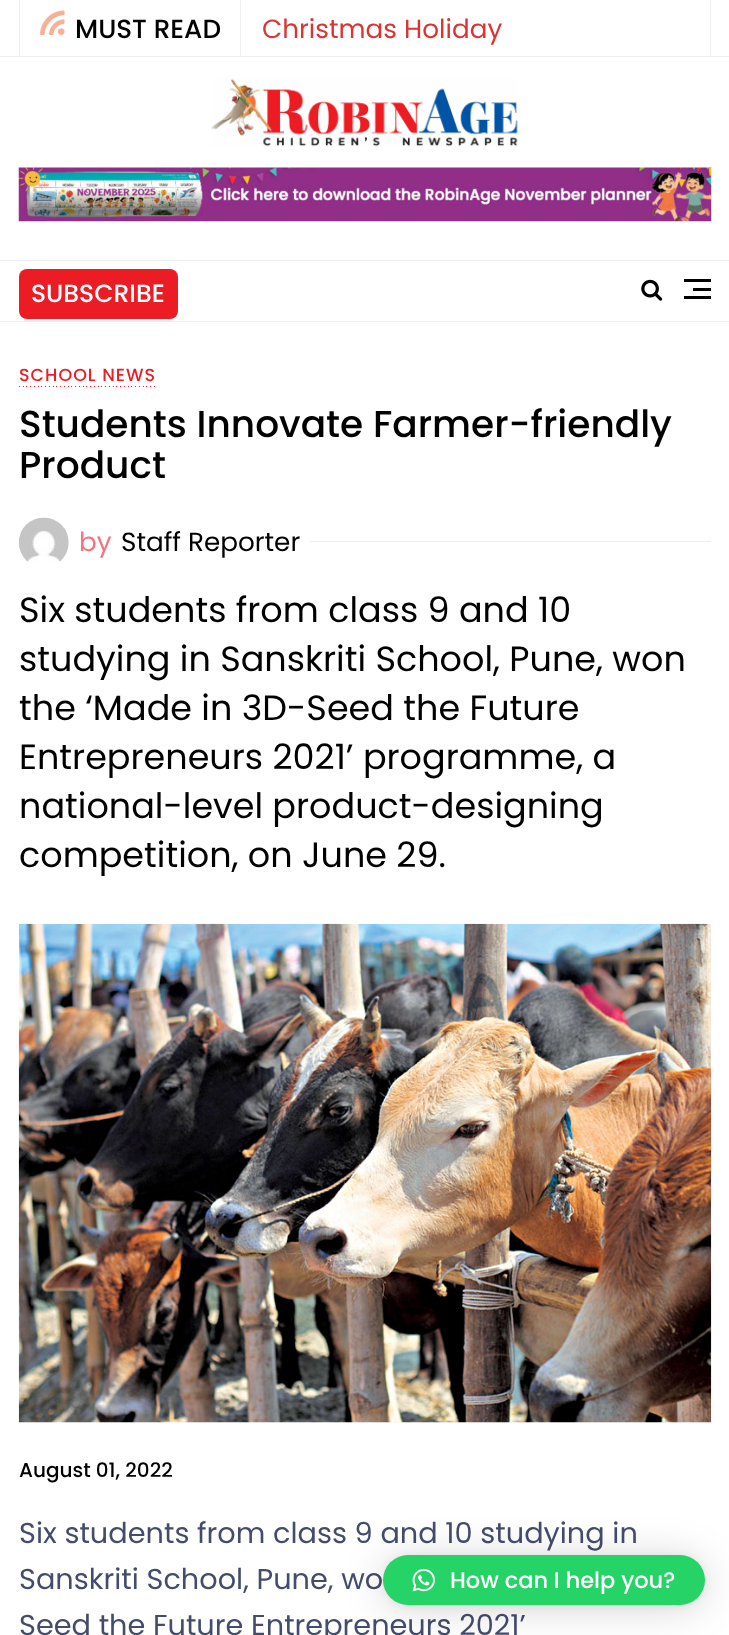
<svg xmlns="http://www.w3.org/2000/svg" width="729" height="1635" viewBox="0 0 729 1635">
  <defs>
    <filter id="blur1" x="-50%" y="-200%" width="200%" height="500%"><feGaussianBlur stdDeviation="20"/></filter>
    <filter id="blur2" x="-50%" y="-200%" width="200%" height="500%"><feGaussianBlur stdDeviation="4"/></filter>
  </defs>
  <rect width="100%" height="100%" fill="#ffffff"/>
  <rect x="240" y="0" width="1" height="56" fill="#eeeeee"/>
  <rect x="19" y="0" width="1" height="56" fill="#eeeeee"/>
  <image x="40" y="10" width="25" height="25" href="img1.png"/>
  <text x="75" y="38" font-family="Poppins" font-size="26.25" font-weight="500" fill="#000000">MUST READ</text>
  <rect x="710" y="0" width="1" height="56" fill="#eeeeee"/>
  <text x="262" y="38" font-family="Poppins" font-size="26.25" fill="#dd3333">Christmas Holiday</text>
  <rect x="0" y="56" width="729" height="1" fill="#eeeeee"/>
  <image x="211" y="78" width="307" height="69" href="img2.png"/>
  <image x="18" y="167" width="694" height="55" href="img3.png"/>
  <rect x="0" y="260" width="729" height="1" fill="#eeeeee"/>
  <rect x="0" y="321" width="729" height="1" fill="#eeeeee"/>
  <rect x="19" y="269" width="159" height="50" rx="8" fill="#ec1c24"/>
  <text x="31" y="302" font-family="Poppins" font-size="25" font-weight="500" fill="#ffffff">SUBSCRIBE</text>
  <image x="641" y="279" width="22" height="22" href="img4.png"/>
  <rect x="693" y="288" width="18" height="3" fill="#000000"/>
  <rect x="684" y="279" width="27" height="3" fill="#000000"/>
  <rect x="684" y="296" width="27" height="3" fill="#000000"/>
  <text x="19" y="381" font-family="Poppins" font-size="17.5" font-weight="500" letter-spacing="1" fill="#ec1c24">SCHOOL NEWS</text>
  <image x="19" y="386" width="136" height="1" href="img5.png"/>
  <text x="19" y="437" font-family="Poppins" font-size="37.5" font-weight="500" fill="#000000">Students Innovate Farmer-friendly</text>
  <text x="19" y="478" font-family="Poppins" font-size="37.5" font-weight="500" fill="#000000">Product</text>
  <image x="18" y="517" width="51" height="45" href="img6.png"/>
  <text x="79" y="551" font-family="Poppins" font-size="26.25" fill="#f67280">by</text>
  <text x="121" y="551" font-family="Poppins" font-size="26.25" fill="#000000">Staff Reporter</text>
  <rect x="310" y="541" width="401" height="1" fill="#eeeeee"/>
  <text x="19" y="622" font-family="Poppins" font-size="35" fill="#000000">Six students from class 9 and 10</text>
  <text x="19" y="671" font-family="Poppins" font-size="35" fill="#000000">studying in Sanskriti School, Pune, won</text>
  <text x="19" y="720" font-family="Poppins" font-size="35" fill="#000000">the ‘Made in 3D-Seed the Future</text>
  <text x="19" y="769" font-family="Poppins" font-size="35" fill="#000000">Entrepreneurs 2021’ programme, a</text>
  <text x="19" y="818" font-family="Poppins" font-size="35" fill="#000000">national-level product-designing</text>
  <text x="19" y="867" font-family="Poppins" font-size="35" fill="#000000">competition, on June 29.</text>
  <image x="18" y="923" width="694" height="500" href="img7.png"/>
  <text x="19" y="1477" font-family="Poppins" font-size="20" font-weight="500" fill="#000000">August 01, 2022</text>
  <text x="19" y="1543" font-family="Poppins" font-size="28.75" fill="#444c6c">Six students from class 9 and 10 studying in</text>
  <text x="19" y="1589" font-family="Poppins" font-size="28.75" fill="#444c6c">Sanskriti School, Pune, wo</text>
  <text x="19" y="1635" font-family="Poppins" font-size="28.75" fill="#444c6c">Seed the Future Entrepreneurs 2021’</text>
  <rect x="383" y="1558" width="322" height="50" rx="25" fill="#000000" fill-opacity="0.16" filter="url(#blur1)"/>
  <rect x="383" y="1556" width="322" height="50" rx="25" fill="#000000" fill-opacity="0.06" filter="url(#blur2)"/>
  <rect x="383" y="1555" width="322" height="50" rx="25" fill="#25d366"/>
  <image x="412" y="1568" width="23" height="24" href="img8.png"/>
  <text x="450" y="1588" font-family="Poppins" font-size="22.5" font-weight="500" fill="#ffffff">How can I help you?</text>
</svg>
